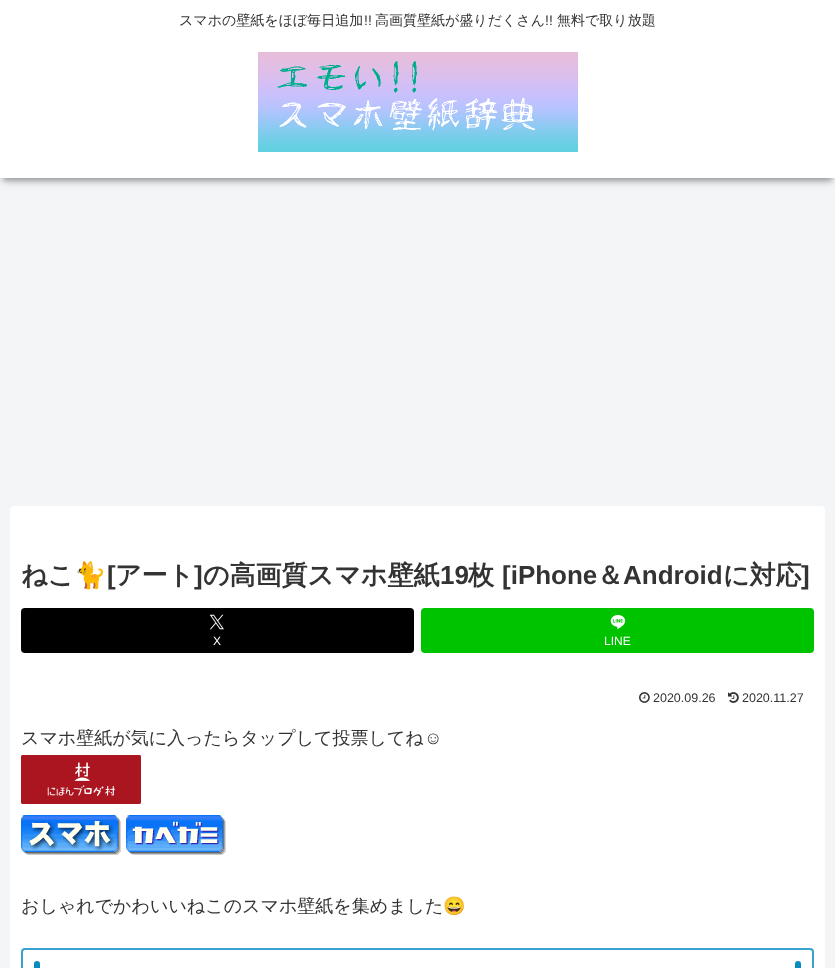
<svg xmlns="http://www.w3.org/2000/svg" width="835" height="968" viewBox="0 0 835 968">
  <defs>
    <filter id="blur1" x="-50%" y="-200%" width="200%" height="500%"><feGaussianBlur stdDeviation="5"/></filter>
    <filter id="blur2" x="-50%" y="-200%" width="200%" height="500%"><feGaussianBlur stdDeviation="2.5"/></filter>
  </defs>
  <rect width="100%" height="100%" fill="#f4f5f7"/>
  <rect x="3" y="9" width="829" height="172" fill="#000000" fill-opacity="0.18" filter="url(#blur1)"/>
  <rect x="3" y="9" width="829" height="172" fill="#000000" fill-opacity="0.24" filter="url(#blur2)"/>
  <rect x="0" y="0" width="835" height="178" fill="#ffffff"/>
  <text x="179" y="25" font-family="WenQuanYi Zen Hei" font-size="14" font-weight="500" fill="#333333">スマホの壁紙をほぼ毎日追加</text>
  <text x="364" y="25" font-family="Liberation Sans" font-size="14" fill="#333333">!!</text>
  <text x="375" y="25" font-family="WenQuanYi Zen Hei" font-size="14" font-weight="500" fill="#333333">高画質壁紙が盛りだくさん</text>
  <text x="545" y="25" font-family="Liberation Sans" font-size="14" fill="#333333">!!</text>
  <text x="557" y="25" font-family="WenQuanYi Zen Hei" font-size="14" font-weight="500" fill="#333333">無料で取り放題</text>
  <image x="258" y="52" width="320" height="100" href="img1.png"/>
  <rect x="10" y="506" width="815" height="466" rx="4" fill="#ffffff"/>
  <text x="21" y="584" font-family="WenQuanYi Zen Hei" font-size="26" font-weight="bold" fill="#333333">ねこ</text>
  <text x="74" y="584" font-family="Noto Color Emoji" font-size="26" font-weight="bold" fill="#333333">🐈</text>
  <text x="107" y="584" font-family="Liberation Sans" font-size="26" font-weight="bold" fill="#333333">[</text>
  <text x="115" y="584" font-family="WenQuanYi Zen Hei" font-size="26" font-weight="bold" fill="#333333">アート</text>
  <text x="194" y="584" font-family="Liberation Sans" font-size="26" font-weight="bold" fill="#333333">]</text>
  <text x="203" y="584" font-family="WenQuanYi Zen Hei" font-size="26" font-weight="bold" fill="#333333">の高画質スマホ壁紙</text>
  <text x="440" y="584" font-family="Liberation Sans" font-size="26" font-weight="bold" fill="#333333">19</text>
  <text x="468" y="584" font-family="WenQuanYi Zen Hei" font-size="26" font-weight="bold" fill="#333333">枚</text>
  <text x="502" y="584" font-family="Liberation Sans" font-size="26" font-weight="bold" fill="#333333">[iPhone</text>
  <text x="597" y="584" font-family="WenQuanYi Zen Hei" font-size="26" font-weight="bold" fill="#333333">＆</text>
  <text x="623" y="584" font-family="Liberation Sans" font-size="26" font-weight="bold" fill="#333333">Android</text>
  <text x="723" y="584" font-family="WenQuanYi Zen Hei" font-size="26" font-weight="bold" fill="#333333">に対応</text>
  <text x="801" y="584" font-family="Liberation Sans" font-size="26" font-weight="bold" fill="#333333">]</text>
  <rect x="21" y="608" width="393" height="45" rx="4" fill="#000000"/>
  <image x="209" y="614" width="15" height="16" href="img2.png"/>
  <text x="213" y="645" font-family="Liberation Sans" font-size="12" fill="#ffffff">X</text>
  <rect x="421" y="608" width="393" height="45" rx="4" fill="#00c300"/>
  <image x="610" y="615" width="16" height="14" href="img3.png"/>
  <text x="604" y="645" font-family="Liberation Sans" font-size="12" fill="#ffffff">LINE</text>
  <image x="639" y="692" width="11" height="11" href="img4.png"/>
  <text x="653" y="702" font-family="Liberation Sans" font-size="12.5" fill="#333333">2020.09.26</text>
  <image x="728" y="692" width="11" height="11" href="img5.png"/>
  <text x="742" y="702" font-family="Liberation Sans" font-size="12.5" fill="#333333">2020.11.27</text>
  <text x="21" y="744" font-family="WenQuanYi Zen Hei" font-size="18" font-weight="500" fill="#333333">スマホ壁紙が気に入ったらタップして投票してね</text>
  <text x="424" y="744" font-family="Liberation Sans" font-size="18" fill="#333333">☺</text>
  <image x="21" y="755" width="120" height="49" href="img6.png"/>
  <image x="21" y="815" width="100" height="40" href="img7.png"/>
  <image x="126" y="815" width="100" height="40" href="img8.png"/>
  <text x="21" y="912" font-family="WenQuanYi Zen Hei" font-size="18" font-weight="500" fill="#333333">おしゃれでかわいいねこのスマホ壁紙を集めました</text>
  <text x="443" y="912" font-family="Noto Color Emoji" font-size="18" fill="#333333">😄</text>
  <rect x="22" y="949" width="791" height="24" rx="3" fill="none" stroke="#39a3cd" stroke-width="2"/>
  <rect x="34" y="961" width="6" height="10" rx="3" fill="#088cc0"/>
  <rect x="795" y="961" width="6" height="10" rx="3" fill="#088cc0"/>
</svg>
